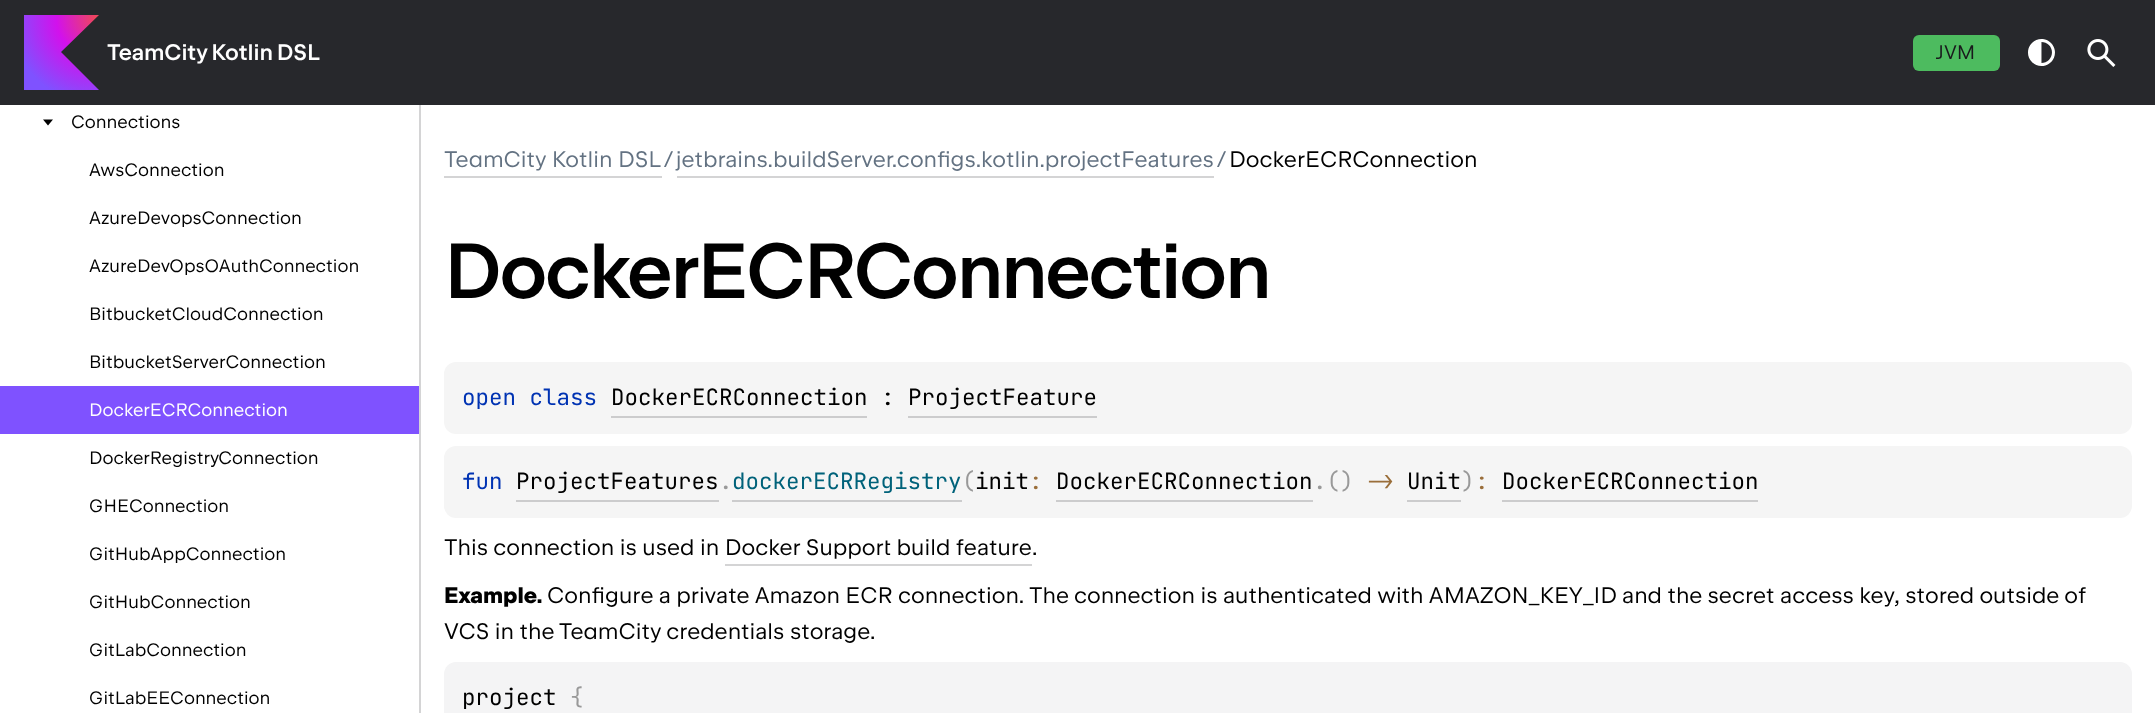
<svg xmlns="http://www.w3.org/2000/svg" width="2155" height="713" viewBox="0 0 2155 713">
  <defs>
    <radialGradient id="g1" gradientUnits="userSpaceOnUse" cx="97" cy="18" r="86"><stop offset="0" stop-color="#ef4857"/><stop offset="0.47" stop-color="#d211ec"/><stop offset="1" stop-color="#7f52ff"/></radialGradient>
  </defs>
  <rect width="100%" height="100%" fill="#ffffff"/>
  <rect x="0" y="0" width="2155" height="105" fill="#27282c"/>
  <path d="M99 90H24V15H99L61 52Z" fill="url(#g1)"/>
  <text x="107" y="60" word-spacing="-1" font-family="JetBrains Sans" font-size="22.5" font-weight="500" letter-spacing="-0.1" fill="#ffffff">TeamCity Kotlin DSL</text>
  <rect x="1913" y="35" width="87" height="36" rx="6" fill="#4dbb5f"/>
  <text x="1936" y="59" font-family="JetBrains Sans" font-size="19.5" fill="#19191c">JVM</text>
  <image x="2028" y="39" width="27" height="27" href="img1.png"/>
  <image x="2087" y="39" width="29" height="28" href="img2.png"/>
  <rect x="419" y="105" width="2" height="608" fill="#d4d4d5"/>
  <path d="M48 125.5L43 119.5H53Z" fill="#000000"/>
  <text x="71" y="128" font-family="JetBrains Sans" font-size="18" fill="#000000">Connections</text>
  <text x="89" y="176" font-family="JetBrains Sans" font-size="18" fill="#000000">AwsConnection</text>
  <text x="89" y="224" font-family="JetBrains Sans" font-size="18" fill="#000000">AzureDevopsConnection</text>
  <text x="89" y="272" font-family="JetBrains Sans" font-size="18" fill="#000000">AzureDevOpsOAuthConnection</text>
  <text x="89" y="320" font-family="JetBrains Sans" font-size="18" fill="#000000">BitbucketCloudConnection</text>
  <text x="89" y="368" font-family="JetBrains Sans" font-size="18" fill="#000000">BitbucketServerConnection</text>
  <rect x="0" y="386" width="419" height="48" fill="#7f52ff"/>
  <text x="89" y="416" font-family="JetBrains Sans" font-size="18" fill="#ffffff">DockerECRConnection</text>
  <text x="89" y="464" font-family="JetBrains Sans" font-size="18" fill="#000000">DockerRegistryConnection</text>
  <text x="89" y="512" font-family="JetBrains Sans" font-size="18" fill="#000000">GHEConnection</text>
  <text x="89" y="560" font-family="JetBrains Sans" font-size="18" fill="#000000">GitHubAppConnection</text>
  <text x="89" y="608" font-family="JetBrains Sans" font-size="18" fill="#000000">GitHubConnection</text>
  <text x="89" y="656" font-family="JetBrains Sans" font-size="18" fill="#000000">GitLabConnection</text>
  <text x="89" y="704" font-family="JetBrains Sans" font-size="18" fill="#000000">GitLabEEConnection</text>
  <text x="444" y="167" font-family="JetBrains Sans" font-size="22.5" fill="#637282">TeamCity Kotlin DSL</text>
  <rect x="444" y="176" width="218" height="2" fill="#d4d4d5"/>
  <text x="664" y="167" font-family="JetBrains Sans" font-size="22.5" fill="#637282">/</text>
  <text x="676" y="167" font-family="JetBrains Sans" font-size="22.5" fill="#637282">jetbrains.buildServer.configs.kotlin.projectFeatures</text>
  <rect x="677" y="176" width="537" height="2" fill="#d4d4d5"/>
  <text x="1217" y="167" font-family="JetBrains Sans" font-size="22.5" fill="#637282">/</text>
  <text x="1229" y="167" font-family="JetBrains Sans" font-size="22.5" fill="#000000">DockerECRConnection</text>
  <text x="444" y="298" font-family="JetBrains Sans" font-size="78" font-weight="500" letter-spacing="-2.25" fill="#000000">DockerECRConnection</text>
  <rect x="444" y="362" width="1688" height="72" rx="12" fill="#f5f5f5"/>
  <text x="462" y="405" font-family="JetBrains Mono" font-size="22.5" fill="#0033b3">open class</text>
  <text x="611" y="405" font-family="JetBrains Mono" font-size="22.5" fill="#000000">DockerECRConnection : ProjectFeature</text>
  <rect x="611" y="416" width="256" height="2" fill="#cccccd"/>
  <rect x="908" y="416" width="189" height="2" fill="#cccccd"/>
  <rect x="444" y="446" width="1688" height="72" rx="12" fill="#f5f5f5"/>
  <text x="462" y="489" font-family="JetBrains Mono" font-size="22.5" fill="#0033b3">fun</text>
  <text x="516" y="489" font-family="JetBrains Mono" font-size="22.5" fill="#000000">ProjectFeatures</text>
  <rect x="516" y="500" width="203" height="2" fill="#cccccd"/>
  <text x="719" y="489" font-family="JetBrains Mono" font-size="22.5" fill="#999999">.</text>
  <text x="732" y="489" font-family="JetBrains Mono" font-size="22.5" fill="#00627a">dockerECRRegistry</text>
  <rect x="732" y="500" width="230" height="2" fill="#cccccd"/>
  <text x="962" y="489" font-family="JetBrains Mono" font-size="22.5" fill="#999999">(</text>
  <text x="975" y="489" font-family="JetBrains Mono" font-size="22.5" fill="#000000">init</text>
  <text x="1029" y="489" font-family="JetBrains Mono" font-size="22.5" fill="#9a6e3a">:</text>
  <text x="1056" y="489" font-family="JetBrains Mono" font-size="22.5" fill="#000000">DockerECRConnection</text>
  <rect x="1056" y="500" width="257" height="2" fill="#cccccd"/>
  <text x="1313" y="489" font-family="JetBrains Mono" font-size="22.5" fill="#999999">.()</text>
  <text x="1367" y="489" font-family="JetBrains Mono" font-size="22.5" fill="#9a6e3a">-&gt;</text>
  <text x="1407" y="489" font-family="JetBrains Mono" font-size="22.5" fill="#000000">Unit</text>
  <rect x="1407" y="500" width="54" height="2" fill="#cccccd"/>
  <text x="1461" y="489" font-family="JetBrains Mono" font-size="22.5" fill="#999999">)</text>
  <text x="1475" y="489" font-family="JetBrains Mono" font-size="22.5" fill="#9a6e3a">:</text>
  <text x="1502" y="489" font-family="JetBrains Mono" font-size="22.5" fill="#000000">DockerECRConnection</text>
  <rect x="1502" y="500" width="256" height="2" fill="#cccccd"/>
  <text x="444" y="555" font-family="JetBrains Sans" font-size="22.5" fill="#000000">This connection is used in Docker Support build feature</text>
  <text x="1032" y="555" font-family="JetBrains Sans" font-size="22.5" fill="#000000">.</text>
  <rect x="725" y="564" width="307" height="2" fill="#d4d4d5"/>
  <text x="444" y="603" font-family="JetBrains Sans" font-size="22.5" font-weight="bold" fill="#000000">Example.</text>
  <text x="547" y="603" font-family="JetBrains Sans" font-size="22.5" fill="#000000">Configure a private Amazon ECR connection. The connection is authenticated with AMAZON_KEY_ID and the secret access key, stored outside of</text>
  <text x="444" y="639" font-family="JetBrains Sans" font-size="22.5" fill="#000000">VCS in the TeamCity credentials storage.</text>
  <path d="M456 662H2120C2126.5 662 2132 667.5 2132 674V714H444V674C444 667.5 449.5 662 456 662Z" fill="#f4f4f5"/>
  <text x="462" y="705" font-family="JetBrains Mono" font-size="22.5" fill="#000000">project</text>
  <text x="570" y="705" font-family="JetBrains Mono" font-size="22.5" fill="#999999">{</text>
</svg>
